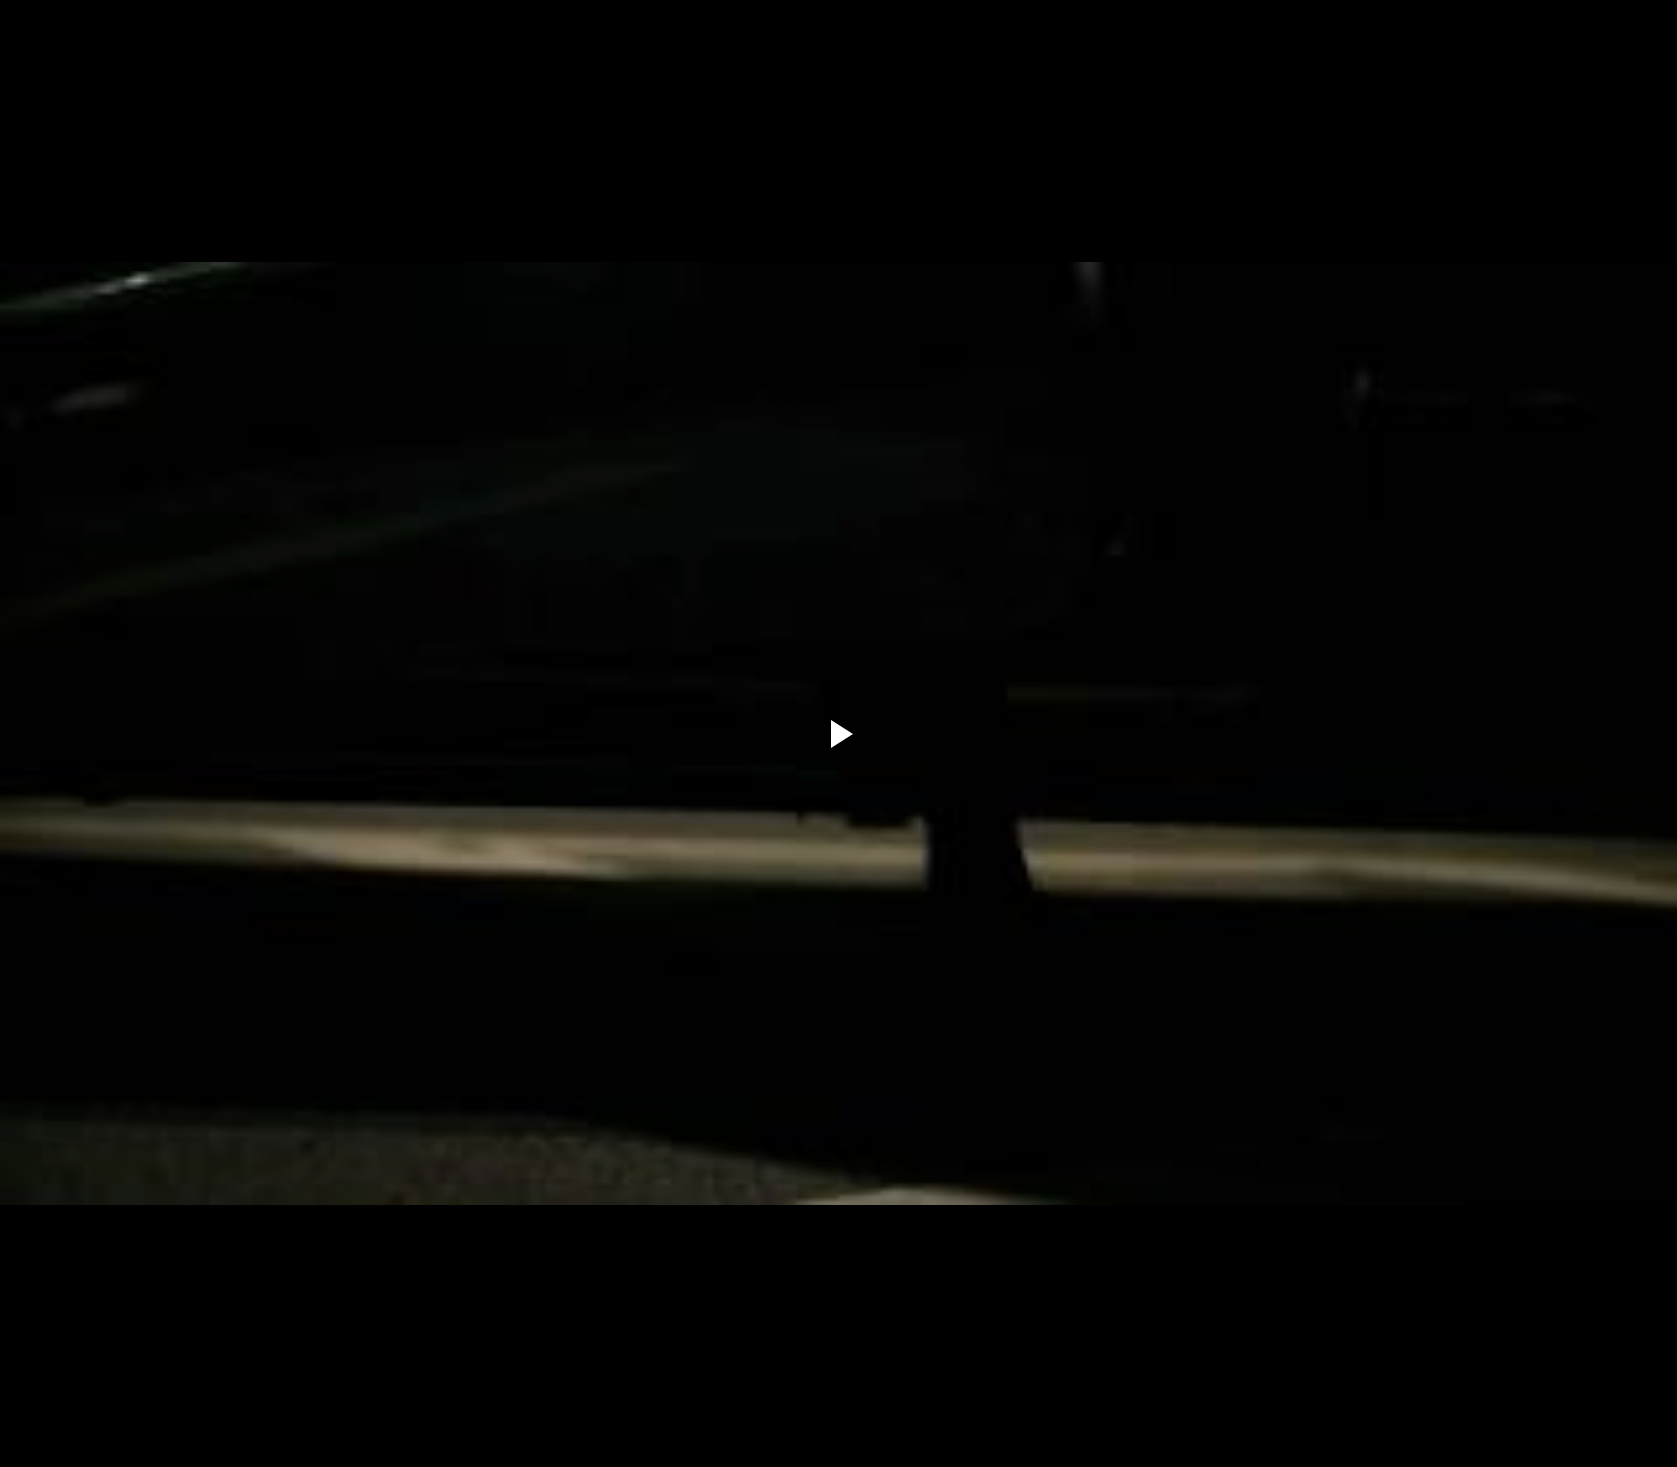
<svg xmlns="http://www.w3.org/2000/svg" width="1677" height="1467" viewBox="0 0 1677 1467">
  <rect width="100%" height="100%" fill="#000000"/>
  <image x="0" y="262" width="1677" height="943" href="img1.png"/>
  <image x="831" y="720" width="22" height="28" href="img2.png"/>
</svg>
